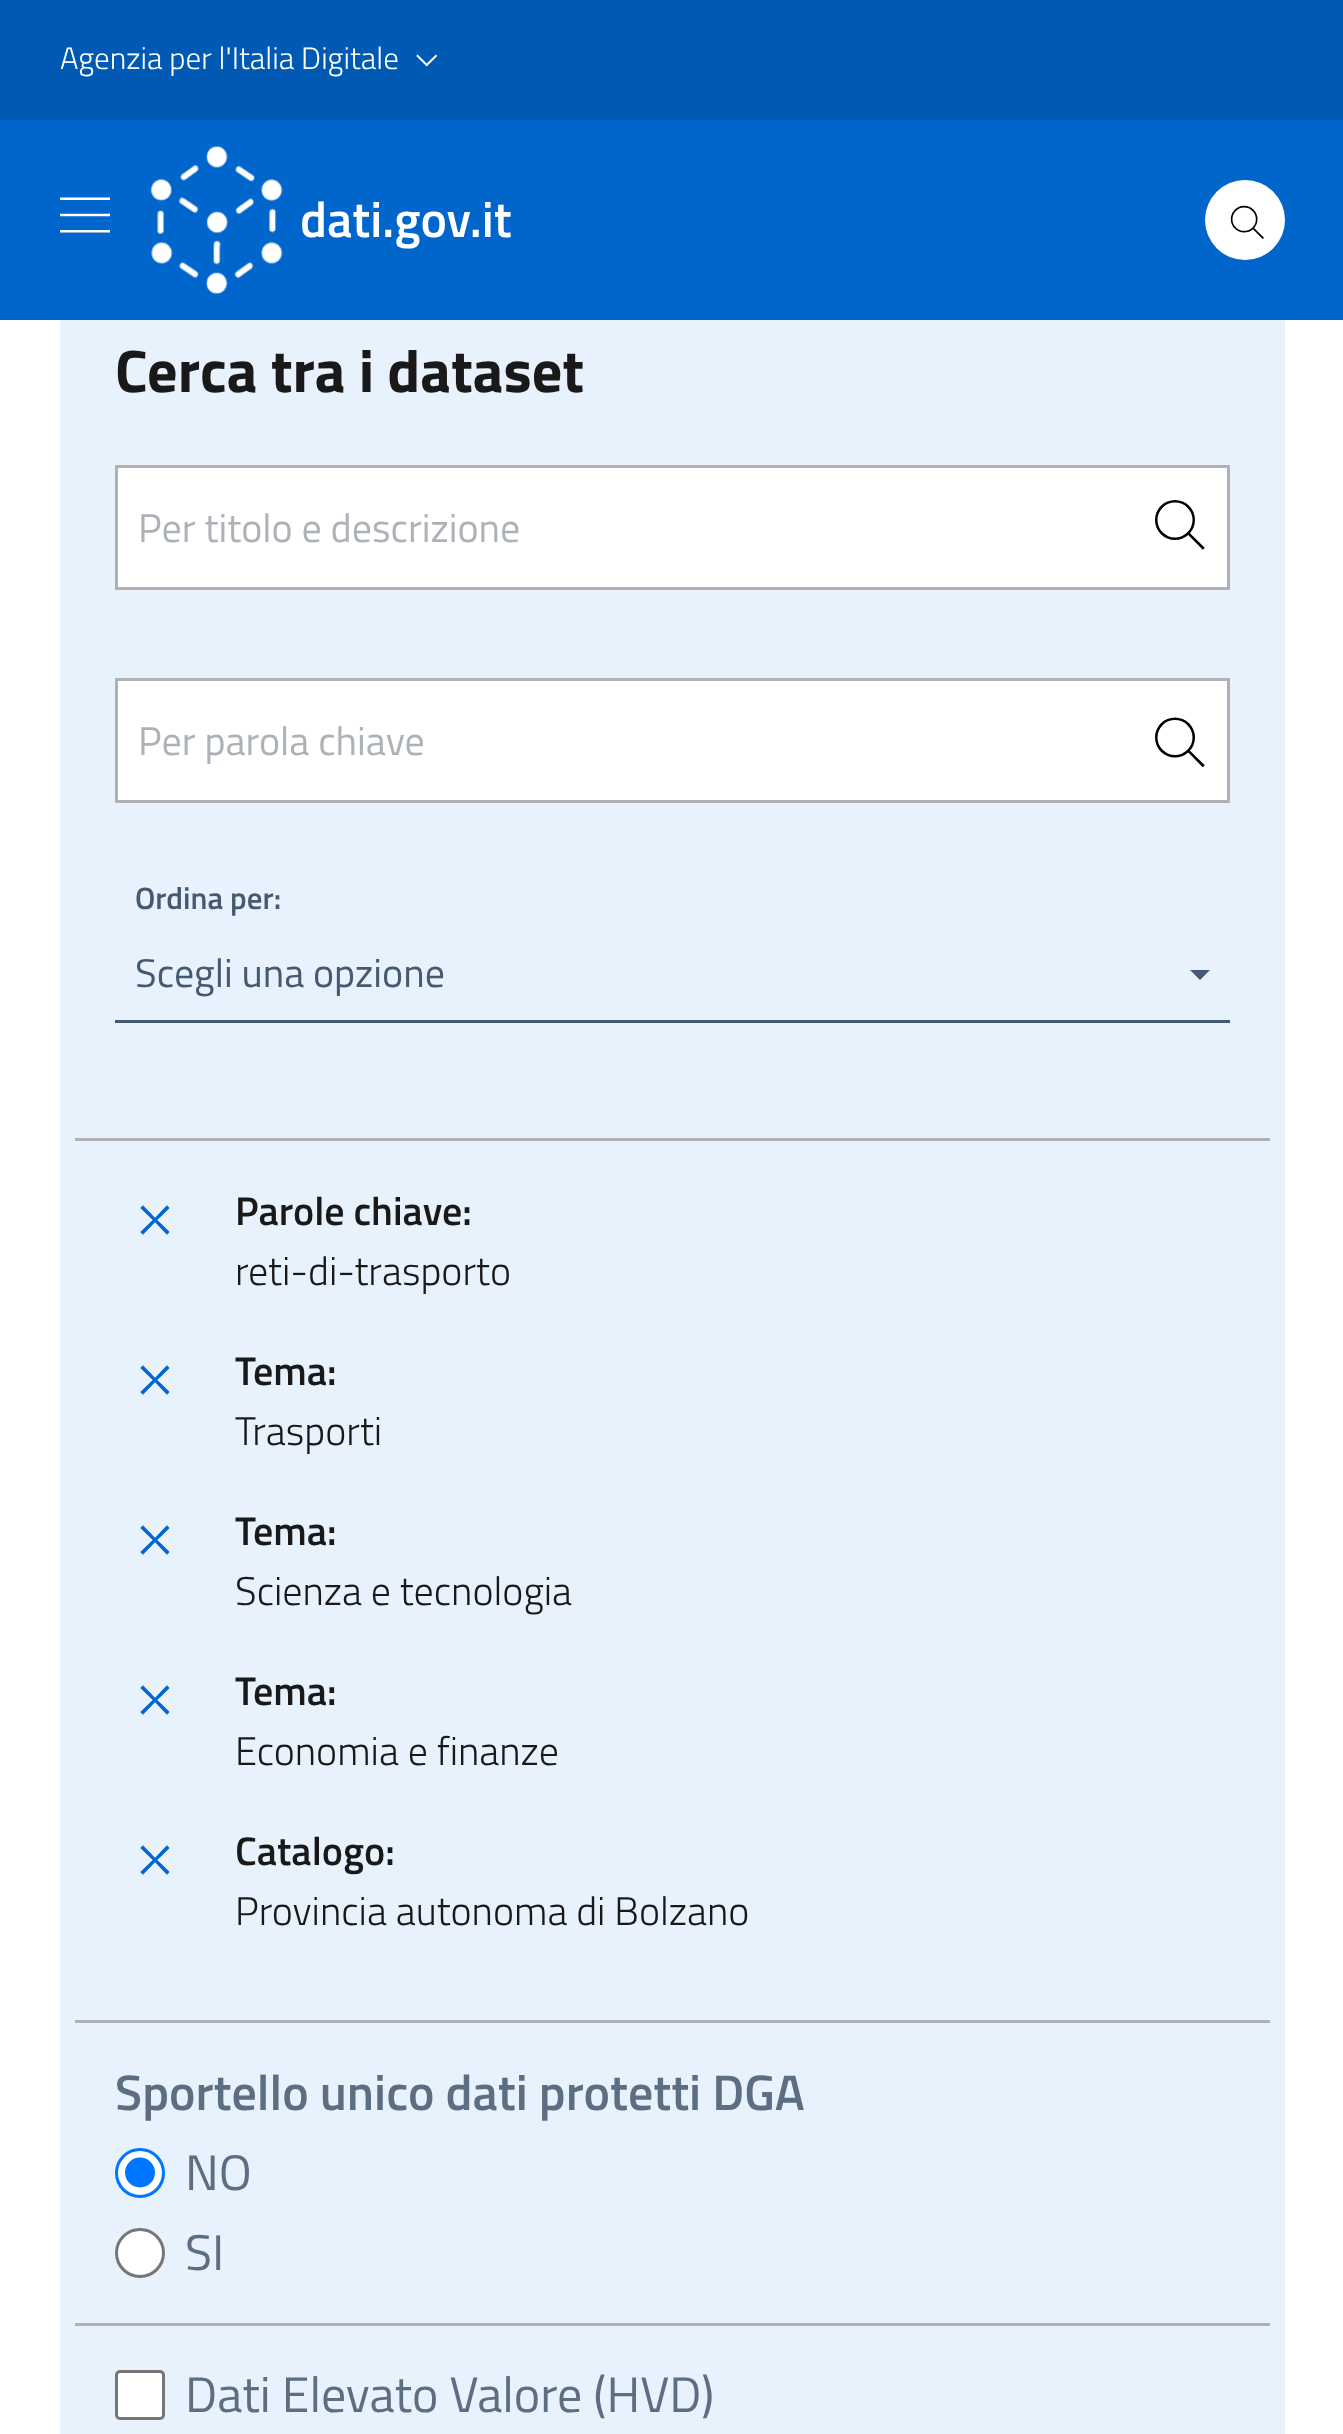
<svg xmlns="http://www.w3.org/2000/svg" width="1343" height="2434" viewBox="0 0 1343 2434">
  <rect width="100%" height="100%" fill="#ffffff"/>
  <rect x="0" y="0" width="1343" height="120" fill="#0059b3"/>
  <text x="60" y="69" font-family="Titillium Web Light" font-size="31.1" font-weight="300" fill="#ffffff">Agenzia per l'Italia Digitale</text>
  <image x="416" y="54" width="21" height="13" href="img1.png"/>
  <rect x="0" y="120" width="1343" height="200" fill="#0066cc"/>
  <image x="60" y="197" width="50" height="36" href="img2.png"/>
  <image x="150" y="146" width="133" height="148" href="img3.png"/>
  <text x="300" y="237" font-family="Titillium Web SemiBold" font-size="50" font-weight="600" fill="#ffffff">dati.gov.it</text>
  <circle cx="1245" cy="220" r="40" fill="#ffffff"/>
  <image x="1230" y="205" width="34" height="34" href="img4.png"/>
  <rect x="60" y="320" width="1225" height="2114" fill="#e8f2fc"/>
  <text x="115" y="392" font-family="Titillium Web" font-size="60" font-weight="bold" fill="#19191a">Cerca tra i dataset</text>
  <rect x="116.5" y="466.5" width="1112" height="122" fill="#ffffff" stroke="#b1b1b3" stroke-width="3"/>
  <text x="138" y="542" font-family="Titillium Web" font-size="40" fill="#adb2b8">Per titolo e descrizione</text>
  <image x="1155" y="500" width="50" height="50" href="img5.png"/>
  <rect x="116.5" y="679.5" width="1112" height="122" fill="#ffffff" stroke="#b1b1b3" stroke-width="3"/>
  <text x="138" y="755" font-family="Titillium Web" font-size="40" fill="#adb2b8">Per parola chiave</text>
  <image x="1155" y="717" width="50" height="51" href="img6.png"/>
  <text x="135" y="909" font-family="Titillium Web SemiBold" font-size="31" font-weight="600" fill="#435a70">Ordina per:</text>
  <text x="135" y="987" font-family="Titillium Web" font-size="40" fill="#435a70">Scegli una opzione</text>
  <rect x="115" y="1020" width="1115" height="3" fill="#435a70"/>
  <path d="M1190 970H1210L1200 980Z" fill="#435a70"/>
  <rect x="75" y="1138" width="1195" height="3" fill="#b1b1b3"/>
  <image x="140" y="1205" width="30" height="30" href="img7.png"/>
  <text x="235" y="1225" font-family="Titillium Web SemiBold" font-size="40" font-weight="600" fill="#19191a">Parole chiave:</text>
  <text x="235" y="1285" font-family="Titillium Web Light" font-size="40" font-weight="300" fill="#19191a">reti-di-trasporto</text>
  <image x="140" y="1365" width="30" height="30" href="img7.png"/>
  <text x="235" y="1385" font-family="Titillium Web SemiBold" font-size="40" font-weight="600" fill="#19191a">Tema:</text>
  <text x="235" y="1445" font-family="Titillium Web Light" font-size="40" font-weight="300" fill="#19191a">Trasporti</text>
  <image x="140" y="1525" width="30" height="30" href="img7.png"/>
  <text x="235" y="1545" font-family="Titillium Web SemiBold" font-size="40" font-weight="600" fill="#19191a">Tema:</text>
  <text x="235" y="1605" font-family="Titillium Web Light" font-size="40" font-weight="300" fill="#19191a">Scienza e tecnologia</text>
  <image x="140" y="1685" width="30" height="30" href="img7.png"/>
  <text x="235" y="1705" font-family="Titillium Web SemiBold" font-size="40" font-weight="600" fill="#19191a">Tema:</text>
  <text x="235" y="1765" font-family="Titillium Web Light" font-size="40" font-weight="300" fill="#19191a">Economia e finanze</text>
  <image x="140" y="1845" width="30" height="30" href="img7.png"/>
  <text x="235" y="1865" font-family="Titillium Web SemiBold" font-size="40" font-weight="600" fill="#19191a">Catalogo:</text>
  <text x="235" y="1925" font-family="Titillium Web Light" font-size="40" font-weight="300" fill="#19191a">Provincia autonoma di Bolzano</text>
  <rect x="75" y="2020" width="1195" height="3" fill="#b1b1b3"/>
  <text x="115" y="2110" font-family="Titillium Web SemiBold" font-size="50" font-weight="600" fill="#5c6f82">Sportello unico dati protetti DGA</text>
  <circle cx="140" cy="2173" r="23.5" fill="#ffffff" stroke="#0075ff" stroke-width="3"/>
  <circle cx="140" cy="2172.5" r="15" fill="#0075ff"/>
  <text x="185" y="2190" font-family="Titillium Web" font-size="50" fill="#5c6f82">NO</text>
  <circle cx="140" cy="2253" r="23.5" fill="#ffffff" stroke="#767676" stroke-width="3"/>
  <text x="185" y="2270" font-family="Titillium Web" font-size="50" fill="#5c6f82">SI</text>
  <rect x="75" y="2323" width="1195" height="3" fill="#b1b1b3"/>
  <rect x="116.5" y="2371.5" width="47" height="47" rx="3.5" fill="#ffffff" stroke="#767676" stroke-width="3"/>
  <text x="185" y="2412" font-family="Titillium Web" font-size="50" fill="#5c6f82">Dati Elevato Valore (HVD)</text>
</svg>
